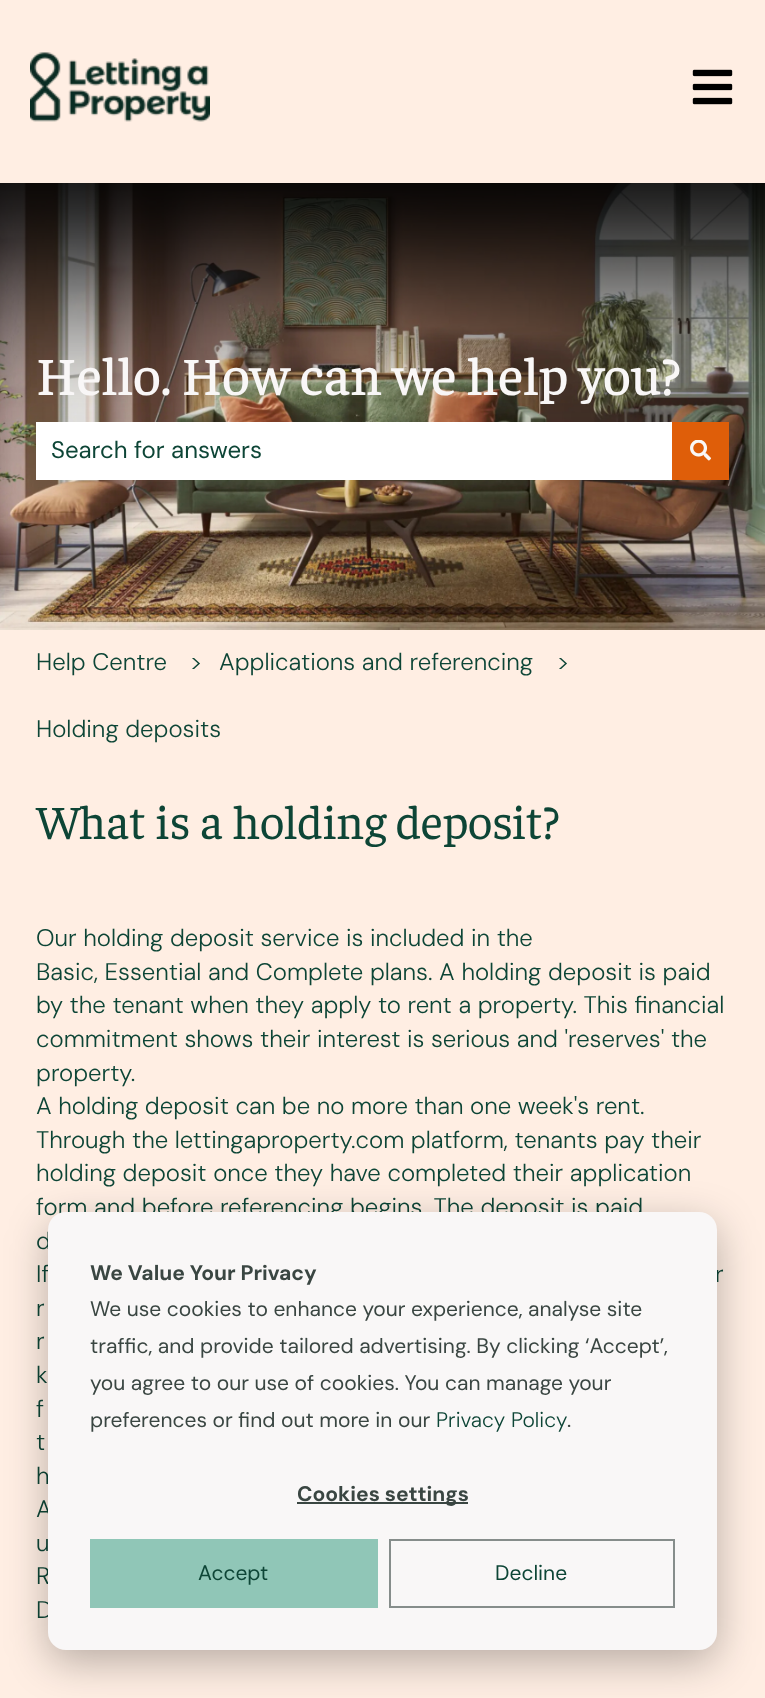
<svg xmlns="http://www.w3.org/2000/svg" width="765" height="1698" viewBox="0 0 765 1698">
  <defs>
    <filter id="blur1" x="-50%" y="-200%" width="200%" height="500%"><feGaussianBlur stdDeviation="18"/></filter>
    <filter id="blur2" x="-50%" y="-200%" width="200%" height="500%"><feGaussianBlur stdDeviation="21"/></filter>
  </defs>
  <rect width="100%" height="100%" fill="#ffeee3"/>
  <image x="30" y="52" width="180" height="70" href="img1.png"/>
  <image x="692" y="69" width="41" height="36" href="img2.png"/>
  <image x="0" y="183" width="765" height="447" href="img3.png"/>
  <text x="36" y="395" font-family="Faustina" font-size="54" font-weight="500" fill="#f9f7f7">Hello. How can we help you?</text>
  <rect x="36" y="423" width="636" height="59" fill="#000000" fill-opacity="0.08" filter="url(#blur1)"/>
  <rect x="36" y="422" width="636" height="58" fill="#ffffff"/>
  <text x="51" y="458" font-family="DM Sans" font-size="24" fill="#0d4536">Search for answers</text>
  <rect x="672" y="422" width="57" height="58" fill="#df5e09"/>
  <image x="690" y="440" width="21" height="21" href="img4.png"/>
  <text x="36" y="670" font-family="DM Sans" font-size="24" font-weight="300" fill="#0d4536">Help Centre</text>
  <text x="190" y="670" font-family="DM Sans" font-size="24" font-weight="300" fill="#0d4536">&gt;</text>
  <text x="219" y="670" font-family="DM Sans" font-size="24" font-weight="300" fill="#0d4536">Applications and referencing</text>
  <text x="557" y="670" font-family="DM Sans" font-size="24" font-weight="300" fill="#0d4536">&gt;</text>
  <text x="36" y="737" font-family="DM Sans" font-size="24" font-weight="300" fill="#0d4536">Holding deposits</text>
  <text x="36" y="839" font-family="Faustina" font-size="48" fill="#0d4536">What is a holding deposit?</text>
  <text x="36" y="946" font-family="DM Sans" font-size="24" font-weight="300" fill="#0d4536">Our holding deposit service is included in the</text>
  <text x="36" y="980" font-family="DM Sans" font-size="24" font-weight="300" fill="#0d4536">Basic, Essential and Complete plans. A holding deposit is paid</text>
  <text x="36" y="1013" font-family="DM Sans" font-size="24" font-weight="300" fill="#0d4536">by the tenant when they apply to rent a property. This financial</text>
  <text x="36" y="1047" font-family="DM Sans" font-size="24" font-weight="300" fill="#0d4536">commitment shows their interest is serious and 'reserves' the</text>
  <text x="36" y="1081" font-family="DM Sans" font-size="24" font-weight="300" fill="#0d4536">property.</text>
  <text x="36" y="1114" font-family="DM Sans" font-size="24" font-weight="300" fill="#0d4536">A holding deposit can be no more than one week's rent.</text>
  <text x="36" y="1148" font-family="DM Sans" font-size="24" font-weight="300" fill="#0d4536">Through the lettingaproperty.com platform, tenants pay their</text>
  <text x="36" y="1181" font-family="DM Sans" font-size="24" font-weight="300" fill="#0d4536">holding deposit once they have completed their application</text>
  <text x="36" y="1215" font-family="DM Sans" font-size="24" font-weight="300" fill="#0d4536">form and before referencing begins. The deposit is paid</text>
  <text x="36" y="1249" font-family="DM Sans" font-size="24" font-weight="300" fill="#0d4536">d</text>
  <text x="36" y="1282" font-family="DM Sans" font-size="24" font-weight="300" fill="#0d4536">If</text>
  <text x="715" y="1282" font-family="DM Sans" font-size="24" font-weight="300" fill="#0d4536">r</text>
  <text x="36" y="1316" font-family="DM Sans" font-size="24" font-weight="300" fill="#0d4536">r</text>
  <text x="36" y="1349" font-family="DM Sans" font-size="24" font-weight="300" fill="#0d4536">r</text>
  <text x="36" y="1383" font-family="DM Sans" font-size="24" font-weight="300" fill="#0d4536">k</text>
  <text x="36" y="1417" font-family="DM Sans" font-size="24" font-weight="300" fill="#0d4536">f</text>
  <text x="36" y="1450" font-family="DM Sans" font-size="24" font-weight="300" fill="#0d4536">t</text>
  <text x="36" y="1484" font-family="DM Sans" font-size="24" font-weight="300" fill="#0d4536">h</text>
  <text x="36" y="1517" font-family="DM Sans" font-size="24" font-weight="300" fill="#0d4536">A</text>
  <text x="36" y="1551" font-family="DM Sans" font-size="24" font-weight="300" fill="#0d4536">u</text>
  <text x="36" y="1584" font-family="DM Sans" font-size="24" font-weight="300" fill="#0d4536">R</text>
  <text x="36" y="1618" font-family="DM Sans" font-size="24" font-weight="300" fill="#0d4536">D</text>
  <rect x="48" y="1224" width="669" height="438" rx="18" fill="#000000" fill-opacity="0.28" filter="url(#blur2)"/>
  <rect x="48" y="1212" width="669" height="438" rx="18" fill="#f9f7f7"/>
  <text x="90" y="1280" font-family="DM Sans" font-size="21" font-weight="bold" fill="#3a4642">We Value Your Privacy</text>
  <text x="90" y="1316" font-family="DM Sans" font-size="21" fill="#3a4642">We use cookies to enhance your experience, analyse site</text>
  <text x="90" y="1353" font-family="DM Sans" font-size="21" fill="#3a4642">traffic, and provide tailored advertising. By clicking ‘Accept’,</text>
  <text x="90" y="1390" font-family="DM Sans" font-size="21" fill="#3a4642">you agree to our use of cookies. You can manage your</text>
  <text x="90" y="1427" font-family="DM Sans" font-size="21" fill="#3a4642">preferences or find out more in our</text>
  <text x="436" y="1427" font-family="DM Sans" font-size="21" font-weight="300" fill="#0d4536">Privacy Policy</text>
  <text x="567" y="1427" font-family="DM Sans" font-size="21" fill="#3a4642">.</text>
  <rect x="297" y="1502" width="171" height="2" fill="#3a4642"/>
  <text x="297" y="1501" font-family="DM Sans" font-size="21" font-weight="bold" fill="#3a4642">Cookies settings</text>
  <rect x="90" y="1539" width="288" height="69" fill="#90c6b7"/>
  <text x="198" y="1580" font-family="DM Sans" font-size="21" fill="#0d4536">Accept</text>
  <rect x="390" y="1540" width="284" height="67" fill="none" stroke="#868d8b" stroke-width="2"/>
  <text x="495" y="1580" font-family="DM Sans" font-size="21" fill="#0d4536">Decline</text>
</svg>
